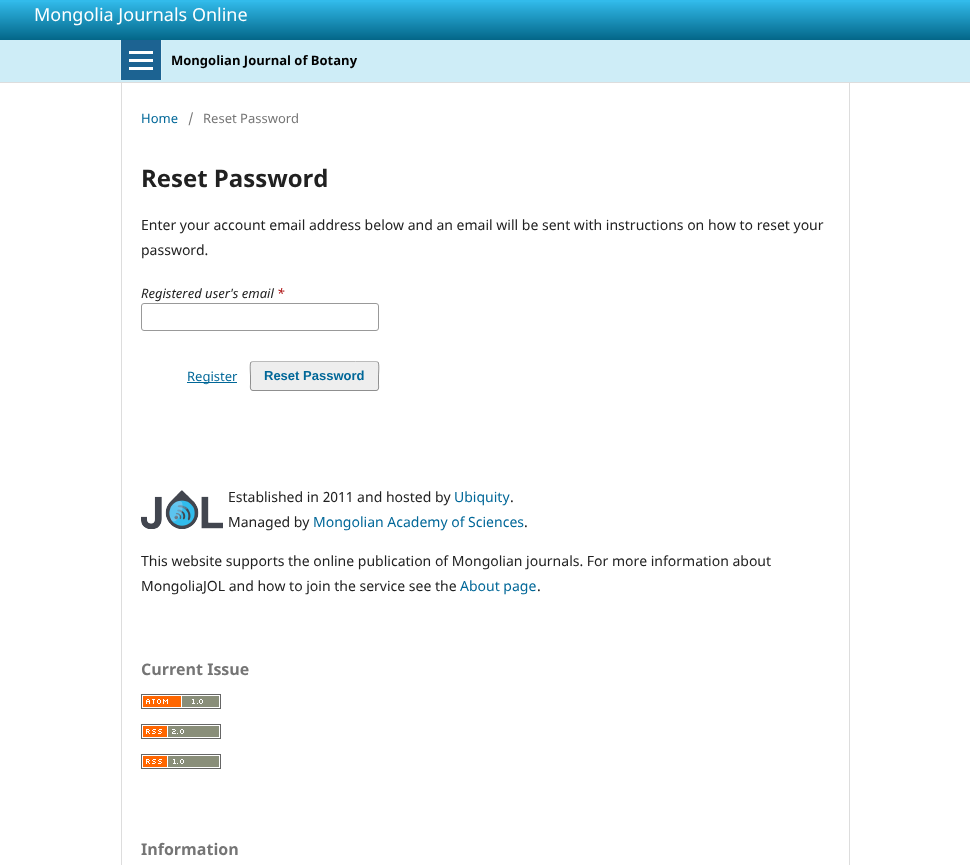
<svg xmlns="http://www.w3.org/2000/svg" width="970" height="865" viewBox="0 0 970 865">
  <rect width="100%" height="100%" fill="#ffffff"/>
  <rect x="0" y="40" width="970" height="42" fill="#ceedf7"/>
  <rect x="0" y="82" width="970" height="1" fill="#dddddd"/>
  <rect x="0" y="0" width="970" height="2" fill="#32bbeb"/>
  <image x="0" y="2" width="970" height="38" href="img1.png"/>
  <text x="34" y="21" font-family="Noto Sans" font-size="18" fill="#ffffff">Mongolia Journals Online</text>
  <rect x="120" y="40" width="1" height="40" fill="#d8f1f9"/>
  <rect x="161" y="40" width="1" height="40" fill="#d8f1f9"/>
  <rect x="121" y="40" width="40" height="40" fill="#1c6392"/>
  <rect x="129" y="67" width="24" height="3" fill="#ffffff"/>
  <rect x="129" y="51" width="24" height="3" fill="#ffffff"/>
  <rect x="129" y="59" width="24" height="3" fill="#ffffff"/>
  <text x="171" y="65" font-family="Noto Sans" font-size="13" font-weight="bold" fill="#000000">Mongolian Journal of Botany</text>
  <rect x="121" y="83" width="1" height="782" fill="#dddddd"/>
  <text x="141" y="123" font-family="Noto Sans" font-size="13" fill="#006798">Home</text>
  <text x="188" y="123" font-family="Noto Sans" font-size="13" fill="#757575">/</text>
  <text x="203" y="123" font-family="Noto Sans" font-size="13" fill="#757575">Reset Password</text>
  <text x="141" y="187" font-family="Noto Sans" font-size="24" font-weight="bold" fill="#212121">Reset Password</text>
  <text x="141" y="230" font-family="Noto Sans" font-size="14" fill="#212121">Enter your account email address below and an email will be sent with instructions on how to reset your</text>
  <text x="141" y="255" font-family="Noto Sans" font-size="14" fill="#212121">password.</text>
  <text x="141" y="298" font-family="Noto Sans" font-size="13" font-style="italic" fill="#212121">Registered user's email</text>
  <text x="277" y="298" font-family="Noto Sans" font-size="13" font-style="italic" fill="#a80000">*</text>
  <rect x="141.5" y="303.5" width="237" height="27" rx="2.5" fill="none" stroke="#999999"/>
  <rect x="187" y="382" width="50" height="1" fill="#006798"/>
  <text x="187" y="381" font-family="Noto Sans" font-size="13" fill="#006798">Register</text>
  <rect x="250" y="361" width="129" height="30" rx="3" fill="#eeeeee"/>
  <path d="M251 362L253 361.5H355.5H376L378 362" fill="none" stroke="#bbbbbb"/>
  <path d="M378 362C379.5 364 378.5 373.5 378.5 376V384C378.5 386 379.5 390.5 376 390.5H253C249.5 390.5 250.5 386 250.5 384V376C250.5 373.5 249.5 364 251 362" fill="none" stroke="#000000" stroke-opacity="0.4"/>
  <text x="264" y="380" font-family="Liberation Sans" font-size="13" font-weight="bold" fill="#006798">Reset Password</text>
  <rect x="849" y="83" width="1" height="782" fill="#dddddd"/>
  <image x="141" y="490" width="82" height="39" href="img2.png"/>
  <text x="228" y="502" font-family="Noto Sans" font-size="14" fill="#212121">Established in 2011 and hosted by</text>
  <text x="454" y="502" font-family="Noto Sans" font-size="14" fill="#006798">Ubiquity</text>
  <text x="510" y="502" font-family="Noto Sans" font-size="14" fill="#212121">.</text>
  <text x="228" y="527" font-family="Noto Sans" font-size="14" fill="#212121">Managed by</text>
  <text x="313" y="527" font-family="Noto Sans" font-size="14" fill="#006798">Mongolian Academy of Sciences</text>
  <text x="524" y="527" font-family="Noto Sans" font-size="14" fill="#212121">.</text>
  <text x="141" y="566" font-family="Noto Sans" font-size="14" fill="#212121">This website supports the online publication of Mongolian journals. For more information about</text>
  <text x="141" y="591" font-family="Noto Sans" font-size="14" fill="#212121">MongoliaJOL and how to join the service see the</text>
  <text x="460" y="591" font-family="Noto Sans" font-size="14" fill="#006798">About page</text>
  <text x="537" y="591" font-family="Noto Sans" font-size="14" fill="#212121">.</text>
  <text x="141" y="675" font-family="Noto Sans" font-size="16" font-weight="bold" fill="#757575">Current Issue</text>
  <image x="141" y="694" width="80" height="15" href="img3.png"/>
  <image x="141" y="724" width="80" height="15" href="img4.png"/>
  <image x="141" y="754" width="80" height="15" href="img5.png"/>
  <text x="141" y="855" font-family="Noto Sans" font-size="16" font-weight="bold" fill="#757575">Information</text>
</svg>
